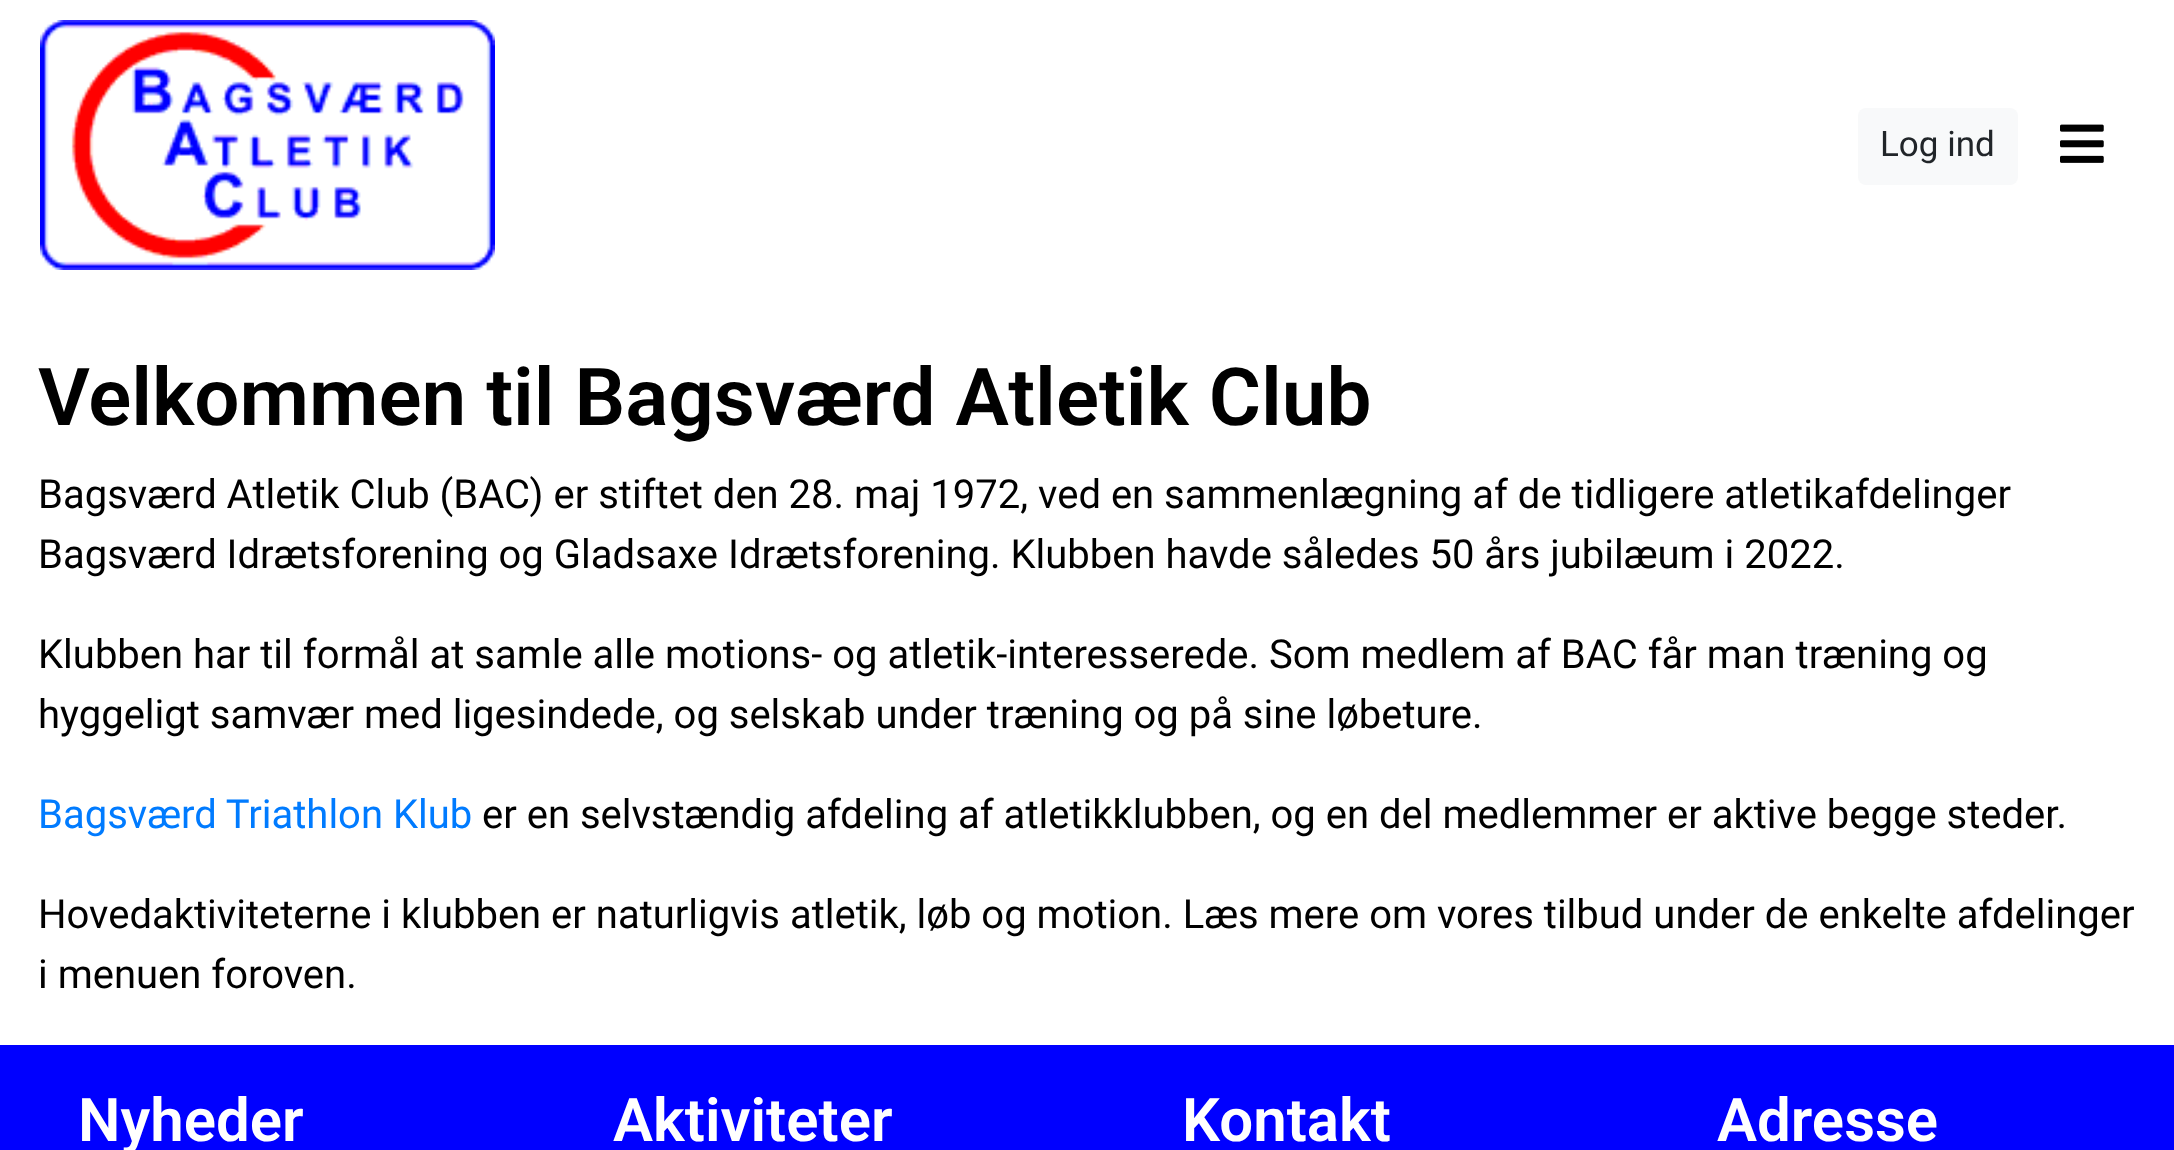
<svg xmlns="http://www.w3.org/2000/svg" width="2174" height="1150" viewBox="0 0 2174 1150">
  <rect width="100%" height="100%" fill="#ffffff"/>
  <image x="40" y="20" width="455" height="250" href="img1.png"/>
  <rect x="1858" y="108" width="160" height="77" rx="8" fill="#f8f9fa"/>
  <text x="1880" y="156" font-family="Roboto" font-size="35" fill="#212529">Log ind</text>
  <image x="2060" y="124" width="44" height="39" href="img2.png"/>
  <text x="38" y="425" font-family="Roboto" font-size="80" font-weight="600" fill="#000000">Velkommen til Bagsværd Atletik Club</text>
  <text x="38" y="508" font-family="Roboto" font-size="40" fill="#000000">Bagsværd Atletik Club (BAC) er stiftet den 28. maj 1972, ved en sammenlægning af de tidligere atletikafdelinger</text>
  <text x="38" y="568" font-family="Roboto" font-size="40" fill="#000000">Bagsværd Idrætsforening og Gladsaxe Idrætsforening. Klubben havde således 50 års jubilæum i 2022.</text>
  <text x="38" y="668" font-family="Roboto" font-size="40" fill="#000000">Klubben har til formål at samle alle motions- og atletik-interesserede. Som medlem af BAC får man træning og</text>
  <text x="38" y="728" font-family="Roboto" font-size="40" fill="#000000">hyggeligt samvær med ligesindede, og selskab under træning og på sine løbeture.</text>
  <text x="38" y="828" font-family="Roboto" font-size="40" fill="#007bff">Bagsværd Triathlon Klub</text>
  <text x="482" y="828" font-family="Roboto" font-size="40" fill="#000000">er en selvstændig afdeling af atletikklubben, og en del medlemmer er aktive begge steder.</text>
  <text x="38" y="928" font-family="Roboto" font-size="40" fill="#000000">Hovedaktiviteterne i klubben er naturligvis atletik, løb og motion. Læs mere om vores tilbud under de enkelte afdelinger</text>
  <text x="38" y="988" font-family="Roboto" font-size="40" fill="#000000">i menuen foroven.</text>
  <rect x="0" y="1045" width="2174" height="105" fill="#0000ff"/>
  <text x="78" y="1141" font-family="Roboto" font-size="60" font-weight="600" fill="#ffffff">Nyheder</text>
  <text x="613" y="1141" font-family="Roboto" font-size="60" font-weight="600" fill="#ffffff">Aktiviteter</text>
  <text x="1182" y="1141" font-family="Roboto" font-size="60" font-weight="600" fill="#ffffff">Kontakt</text>
  <text x="1717" y="1141" font-family="Roboto" font-size="60" font-weight="600" fill="#ffffff">Adresse</text>
</svg>
